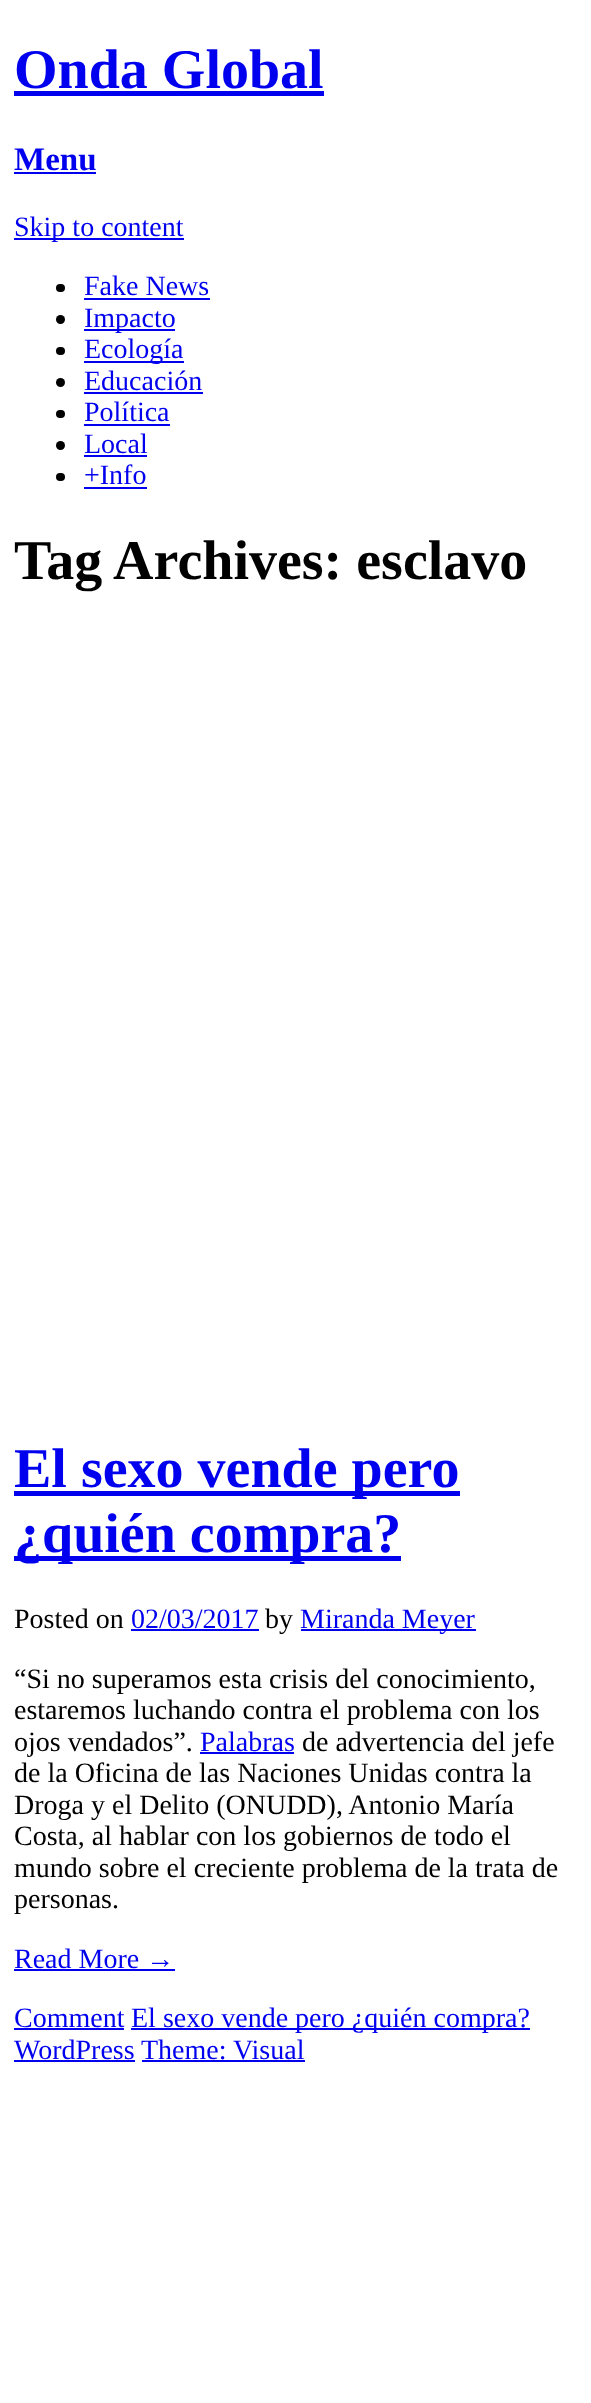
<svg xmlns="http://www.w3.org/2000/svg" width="591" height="2403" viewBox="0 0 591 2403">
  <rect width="100%" height="100%" fill="#ffffff"/>
  <text x="14" y="88" font-family="Liberation Serif" font-size="56" font-weight="bold" fill="#0000ee">Onda Global</text>
  <rect x="14" y="91" width="310" height="5" fill="#0000ee"/>
  <text x="14" y="170" font-family="Liberation Serif" font-size="33" font-weight="bold" fill="#0000ee">Menu</text>
  <rect x="14" y="172" width="82" height="2" fill="#0000ee"/>
  <rect x="14" y="238" width="170" height="2" fill="#0000ee"/>
  <text x="14" y="236" font-family="Liberation Serif" font-size="28" fill="#0000ee">Skip to content</text>
  <rect x="56" y="284" width="9" height="8" rx="4" fill="#000000"/>
  <text x="84" y="295" font-family="Liberation Serif" font-size="28" fill="#0000ee">Fake News</text>
  <rect x="84" y="298" width="126" height="2" fill="#0000ee"/>
  <circle cx="60.5" cy="319.5" r="4.5" fill="#000000"/>
  <rect x="84" y="329" width="91" height="2" fill="#0000ee"/>
  <text x="84" y="327" font-family="Liberation Serif" font-size="28" fill="#0000ee">Impacto</text>
  <rect x="56" y="347" width="9" height="8" rx="4" fill="#000000"/>
  <rect x="84" y="361" width="100" height="2" fill="#0000ee"/>
  <text x="84" y="358" font-family="Liberation Serif" font-size="28" fill="#0000ee">Ecología</text>
  <circle cx="60.5" cy="382.5" r="4.5" fill="#000000"/>
  <text x="84" y="390" font-family="Liberation Serif" font-size="28" fill="#0000ee">Educación</text>
  <rect x="84" y="392" width="119" height="2" fill="#0000ee"/>
  <rect x="56" y="410" width="9" height="8" rx="4" fill="#000000"/>
  <text x="84" y="421" font-family="Liberation Serif" font-size="28" fill="#0000ee">Política</text>
  <rect x="84" y="424" width="86" height="2" fill="#0000ee"/>
  <circle cx="60.5" cy="445.5" r="4.5" fill="#000000"/>
  <text x="84" y="453" font-family="Liberation Serif" font-size="28" fill="#0000ee">Local</text>
  <rect x="84" y="455" width="63" height="2" fill="#0000ee"/>
  <rect x="56" y="473" width="9" height="8" rx="4" fill="#000000"/>
  <text x="84" y="484" font-family="Liberation Serif" font-size="28" fill="#0000ee">+Info</text>
  <rect x="84" y="487" width="63" height="2" fill="#0000ee"/>
  <text x="14" y="579" font-family="Liberation Serif" font-size="56" font-weight="bold" fill="#000000">Tag Archives: esclavo</text>
  <rect x="14" y="1491" width="446" height="5" fill="#0000ee"/>
  <text x="14" y="1487" font-family="Liberation Serif" font-size="56" font-weight="bold" fill="#0000ee">El sexo vende pero</text>
  <rect x="14" y="1556" width="387" height="5" fill="#0000ee"/>
  <text x="14" y="1552" font-family="Liberation Serif" font-size="56" font-weight="bold" fill="#0000ee">¿quién compra?</text>
  <text x="14" y="1628" font-family="Liberation Serif" font-size="28" fill="#000000">Posted on</text>
  <text x="131" y="1628" font-family="Liberation Serif" font-size="28" fill="#0000ee">02/03/2017</text>
  <rect x="131" y="1629" width="128" height="2" fill="#0000ee"/>
  <text x="265" y="1628" font-family="Liberation Serif" font-size="28" fill="#000000">by</text>
  <rect x="301" y="1629" width="175" height="2" fill="#0000ee"/>
  <text x="300" y="1628" font-family="Liberation Serif" font-size="28" fill="#0000ee">Miranda Meyer</text>
  <text x="14" y="1688" font-family="Liberation Serif" font-size="28" fill="#000000">“Si no superamos esta crisis del conocimiento,</text>
  <text x="14" y="1719" font-family="Liberation Serif" font-size="28" fill="#000000">estaremos luchando contra el problema con los</text>
  <text x="14" y="1751" font-family="Liberation Serif" font-size="28" fill="#000000">ojos vendados”.</text>
  <text x="200" y="1751" font-family="Liberation Serif" font-size="28" fill="#0000ee">Palabras</text>
  <rect x="200" y="1752" width="94" height="2" fill="#0000ee"/>
  <text x="302" y="1751" font-family="Liberation Serif" font-size="28" fill="#000000">de advertencia del jefe</text>
  <text x="14" y="1782" font-family="Liberation Serif" font-size="28" fill="#000000">de la Oficina de las Naciones Unidas contra la</text>
  <text x="14" y="1814" font-family="Liberation Serif" font-size="28" fill="#000000">Droga y el Delito (ONUDD), Antonio María</text>
  <text x="14" y="1845" font-family="Liberation Serif" font-size="28" fill="#000000">Costa, al hablar con los gobiernos de todo el</text>
  <text x="14" y="1877" font-family="Liberation Serif" font-size="28" fill="#000000">mundo sobre el creciente problema de la trata de</text>
  <text x="14" y="1908" font-family="Liberation Serif" font-size="28" fill="#000000">personas.</text>
  <text x="14" y="1968" font-family="Liberation Serif" font-size="28" fill="#0000ee">Read More →</text>
  <rect x="14" y="1969" width="161" height="2" fill="#0000ee"/>
  <text x="14" y="2027" font-family="Liberation Serif" font-size="28" fill="#0000ee">Comment</text>
  <rect x="14" y="2028" width="110" height="2" fill="#0000ee"/>
  <rect x="131" y="2028" width="399" height="2" fill="#0000ee"/>
  <text x="131" y="2027" font-family="Liberation Serif" font-size="28" fill="#0000ee">El sexo vende pero ¿quién compra?</text>
  <text x="14" y="2059" font-family="Liberation Serif" font-size="28" fill="#0000ee">WordPress</text>
  <rect x="14" y="2060" width="121" height="2" fill="#0000ee"/>
  <text x="141" y="2059" font-family="Liberation Serif" font-size="28" fill="#0000ee">Theme: Visual</text>
  <rect x="142" y="2060" width="163" height="2" fill="#0000ee"/>
</svg>
